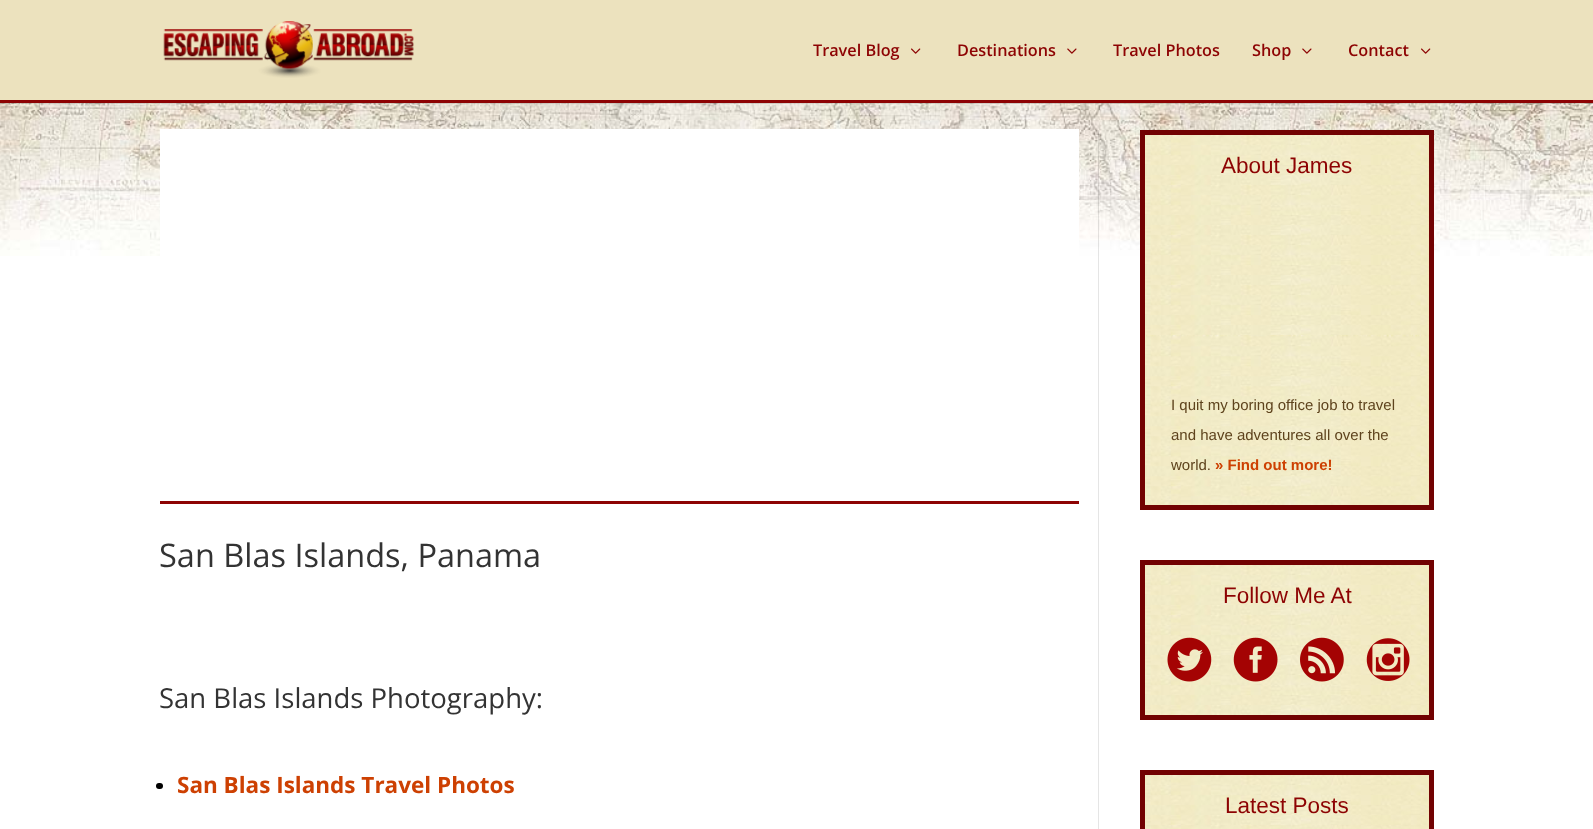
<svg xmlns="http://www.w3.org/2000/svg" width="1593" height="829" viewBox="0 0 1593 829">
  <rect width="100%" height="100%" fill="#ffffff"/>
  <image x="0" y="103" width="1593" height="153" href="img1.png"/>
  <path d="M0 102V104H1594V1V102Z" fill="#000000" fill-opacity="0.1"/>
  <rect x="0" y="0" width="1593" height="100" fill="#ece2be"/>
  <rect x="0" y="100" width="1593" height="3" fill="#8d0303"/>
  <image x="163" y="21" width="251" height="57" href="img2.png"/>
  <text x="813" y="56" font-family="Open Sans" font-size="16.25" font-weight="600" fill="#8d0303">Travel Blog</text>
  <image x="911" y="48" width="10" height="6" href="img3.png"/>
  <text x="957" y="56" font-family="Open Sans" font-size="16.25" font-weight="600" fill="#8d0303">Destinations</text>
  <image x="1067" y="48" width="10" height="6" href="img4.png"/>
  <text x="1113" y="56" font-family="Open Sans" font-size="16.25" font-weight="600" fill="#8d0303">Travel Photos</text>
  <text x="1252" y="56" font-family="Open Sans" font-size="16.25" font-weight="600" fill="#8d0303">Shop</text>
  <image x="1302" y="48" width="10" height="6" href="img4.png"/>
  <text x="1348" y="56" font-family="Open Sans" font-size="16.25" font-weight="600" fill="#8d0303">Contact</text>
  <image x="1421" y="48" width="10" height="6" href="img3.png"/>
  <rect x="160" y="129" width="919" height="127" fill="#ffffff"/>
  <rect x="160" y="501" width="919" height="3" fill="#8d0303"/>
  <text x="159" y="567" font-family="Open Sans" font-size="32.5" fill="#333333">San Blas Islands, Panama</text>
  <text x="159" y="708" font-family="Open Sans" font-size="27.5" fill="#333333">San Blas Islands Photography:</text>
  <rect x="156" y="783" width="7" height="6" rx="3" fill="#000000"/>
  <text x="177" y="793" font-family="Open Sans" font-size="22.5" font-weight="bold" fill="#cd4002">San Blas Islands Travel Photos</text>
  <rect x="1098" y="130" width="1" height="699" fill="#000000" fill-opacity="0.1"/>
  <image x="1145" y="135" width="284" height="370" href="img5.png"/>
  <rect x="1142.5" y="132.5" width="289" height="375" fill="none" stroke="#720202" stroke-width="5"/>
  <text x="1221" y="173" font-family="Liberation Sans" font-size="22.5" fill="#8d0303">About James</text>
  <text x="1171" y="410" font-family="Liberation Sans" font-size="15" fill="#5e431d">I quit my boring office job to travel</text>
  <text x="1171" y="440" font-family="Liberation Sans" font-size="15" fill="#5e431d">and have adventures all over the</text>
  <text x="1171" y="470" font-family="Liberation Sans" font-size="15" fill="#5e431d">world.</text>
  <text x="1215" y="470" font-family="Liberation Sans" font-size="15" font-weight="bold" fill="#cd4002">» Find out more!</text>
  <image x="1145" y="565" width="284" height="150" href="img6.png"/>
  <rect x="1142.5" y="562.5" width="289" height="155" fill="none" stroke="#720202" stroke-width="5"/>
  <text x="1223" y="603" font-family="Liberation Sans" font-size="22.5" fill="#8d0303">Follow Me At</text>
  <image x="1167" y="637" width="45" height="45" href="img7.png"/>
  <image x="1233" y="637" width="45" height="45" href="img8.png"/>
  <image x="1300" y="637" width="44" height="45" href="img9.png"/>
  <image x="1366" y="638" width="44" height="43" href="img10.png"/>
  <image x="1145" y="775" width="284" height="54" href="img11.png"/>
  <rect x="1142.5" y="772.5" width="289" height="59" fill="none" stroke="#720202" stroke-width="5"/>
  <text x="1225" y="813" font-family="Liberation Sans" font-size="22.5" fill="#8d0303">Latest Posts</text>
</svg>
